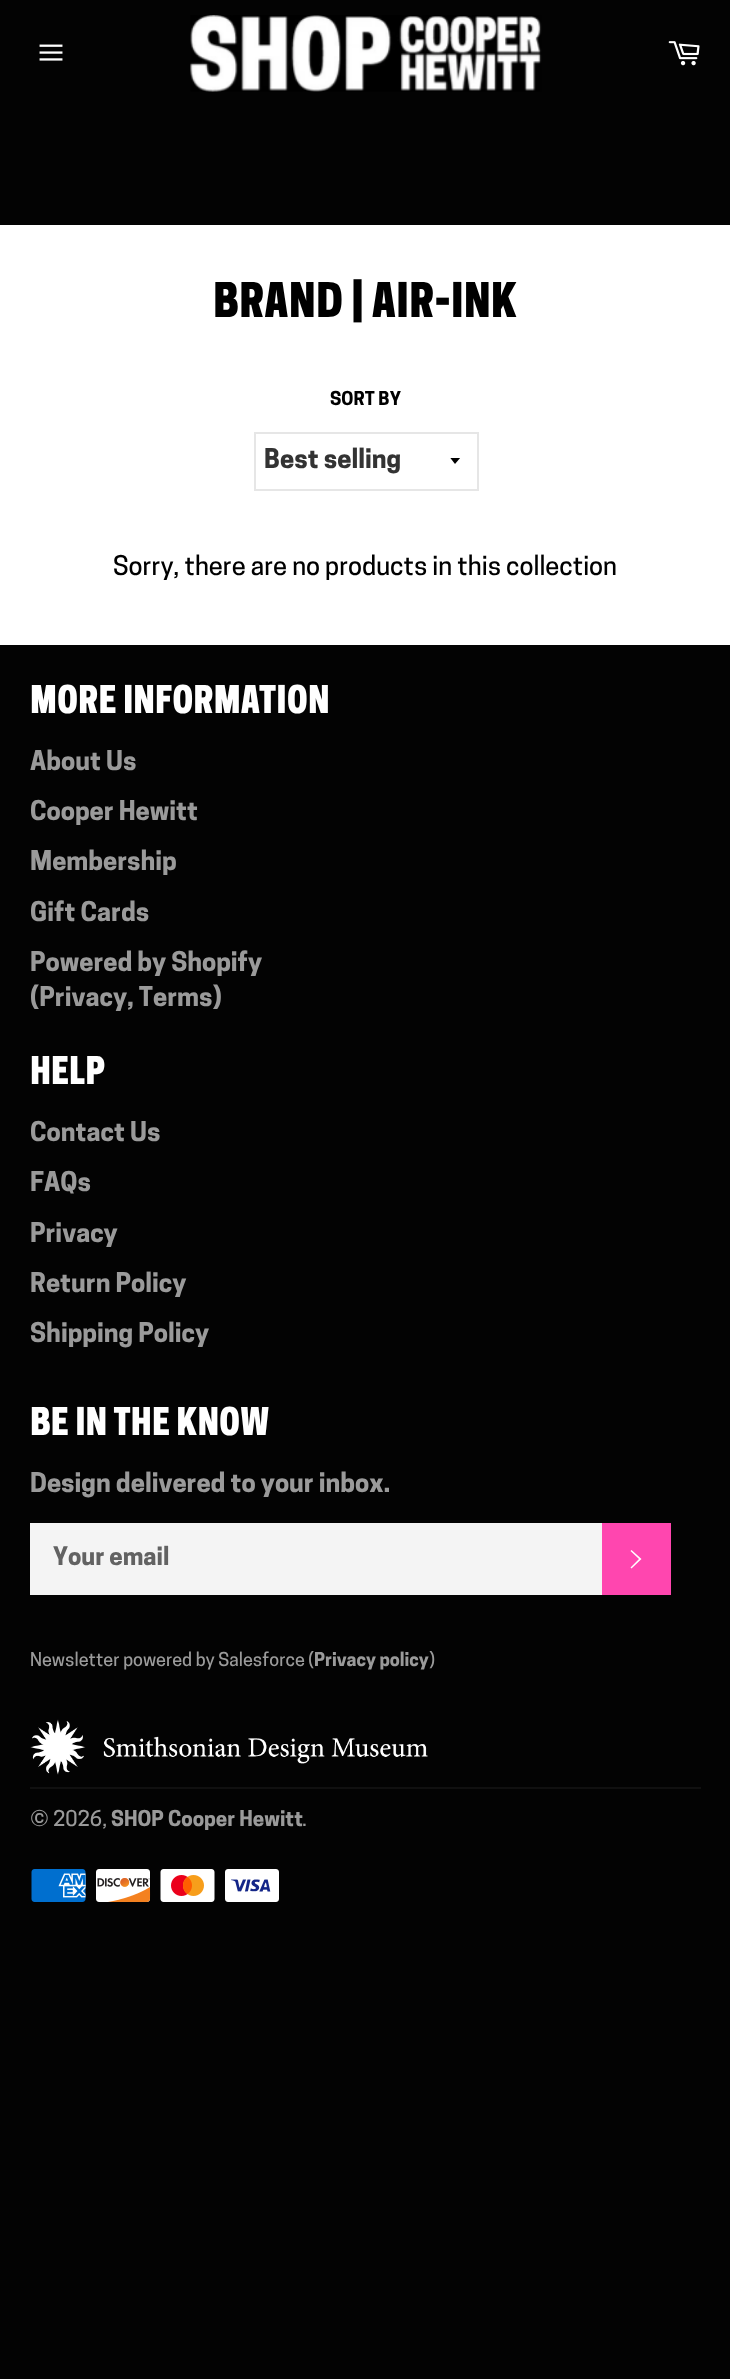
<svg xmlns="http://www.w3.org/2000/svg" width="730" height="2379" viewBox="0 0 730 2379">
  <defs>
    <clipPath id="clip1"><rect x="450" y="458" width="12" height="7"/></clipPath>
  </defs>
  <rect width="100%" height="100%" fill="#030303"/>
  <rect x="0" y="225" width="730" height="420" fill="#ffffff"/>
  <image x="39" y="44" width="24" height="17" href="img1.png"/>
  <image x="190" y="15" width="352" height="77" href="img2.png"/>
  <image x="668" y="41" width="32" height="25" href="img3.png"/>
  <text x="213" y="317" font-family="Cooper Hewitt" font-size="45" font-weight="900" fill="#000000">BRAND | AIR-INK</text>
  <text x="330" y="405" font-family="Cooper Hewitt" font-size="18" font-weight="bold" fill="#000000">SORT BY</text>
  <g clip-path="url(#clip1)">
    <path d="M450 457.5L455 464L460.5 457.5Z" fill="#000000"/>
  </g>
  <rect x="255" y="433" width="223" height="57" fill="none" stroke="#e6e6e6" stroke-width="2"/>
  <text x="264" y="468" font-family="Cooper Hewitt" font-size="25.5" font-weight="bold" fill="#333333">Best selling</text>
  <text x="113" y="575" font-family="Cooper Hewitt" font-size="25.5" font-weight="500" fill="#000000">Sorry, there are no products in this collection</text>
  <text x="30" y="713" font-family="Cooper Hewitt" font-size="36" font-weight="900" fill="#ffffff">MORE INFORMATION</text>
  <text x="30" y="770" font-family="Cooper Hewitt" font-size="25.5" font-weight="bold" fill="#9a9a9a">About Us</text>
  <text x="30" y="820" font-family="Cooper Hewitt" font-size="25.5" font-weight="bold" fill="#9a9a9a">Cooper Hewitt</text>
  <text x="30" y="870" font-family="Cooper Hewitt" font-size="25.5" font-weight="bold" fill="#9a9a9a">Membership</text>
  <text x="30" y="921" font-family="Cooper Hewitt" font-size="25.5" font-weight="bold" fill="#9a9a9a">Gift Cards</text>
  <text x="30" y="971" font-family="Cooper Hewitt" font-size="25.5" font-weight="bold" fill="#9a9a9a">Powered by Shopify</text>
  <text x="30" y="1006" font-family="Cooper Hewitt" font-size="25.5" font-weight="bold" fill="#9a9a9a">(Privacy, Terms)</text>
  <text x="30" y="1084" font-family="Cooper Hewitt" font-size="36" font-weight="900" fill="#ffffff">HELP</text>
  <text x="30" y="1141" font-family="Cooper Hewitt" font-size="25.5" font-weight="bold" fill="#9a9a9a">Contact Us</text>
  <text x="30" y="1191" font-family="Cooper Hewitt" font-size="25.5" font-weight="bold" fill="#9a9a9a">FAQs</text>
  <text x="30" y="1242" font-family="Cooper Hewitt" font-size="25.5" font-weight="bold" fill="#9a9a9a">Privacy</text>
  <text x="30" y="1292" font-family="Cooper Hewitt" font-size="25.5" font-weight="bold" fill="#9a9a9a">Return Policy</text>
  <text x="30" y="1342" font-family="Cooper Hewitt" font-size="25.5" font-weight="bold" fill="#9a9a9a">Shipping Policy</text>
  <text x="30" y="1435" font-family="Cooper Hewitt" font-size="36" font-weight="900" fill="#ffffff">BE IN THE KNOW</text>
  <text x="30" y="1492" font-family="Cooper Hewitt" font-size="25.5" font-weight="bold" fill="#9a9a9a">Design delivered to your inbox.</text>
  <rect x="30" y="1523" width="572" height="72" fill="#f4f4f4"/>
  <text x="53" y="1565" font-family="Cooper Hewitt" font-size="24" font-weight="bold" fill="#626262">Your email</text>
  <rect x="602" y="1523" width="69" height="72" fill="#ff46af"/>
  <path d="M630.5 1551L631.5 1550L641.5 1559L631.5 1568.5L630.5 1567.5L639 1559Z" fill="#ffffff"/>
  <text x="30" y="1666" font-family="Cooper Hewitt" font-size="18" font-weight="500" fill="#9a9a9a">Newsletter powered by Salesforce (</text>
  <text x="314" y="1666" font-family="Cooper Hewitt" font-size="18" font-weight="bold" fill="#9a9a9a">Privacy policy</text>
  <text x="429" y="1666" font-family="Cooper Hewitt" font-size="18" font-weight="500" fill="#9a9a9a">)</text>
  <image x="30" y="1719" width="398" height="56" href="img4.png"/>
  <rect x="30" y="1787" width="671" height="2" fill="#101010"/>
  <text x="30" y="1826" font-family="Cooper Hewitt" font-size="20.5" font-weight="500" fill="#9a9a9a">© 2026,</text>
  <text x="111" y="1826" font-family="Cooper Hewitt" font-size="20.5" font-weight="bold" fill="#9a9a9a">SHOP Cooper Hewitt</text>
  <text x="302" y="1826" font-family="Cooper Hewitt" font-size="20.5" font-weight="500" fill="#9a9a9a">.</text>
  <image x="31" y="1869" width="55" height="33" href="img5.png"/>
  <image x="96" y="1869" width="55" height="33" href="img6.png"/>
  <image x="160" y="1869" width="55" height="33" href="img7.png"/>
  <image x="225" y="1869" width="54" height="33" href="img8.png"/>
</svg>
